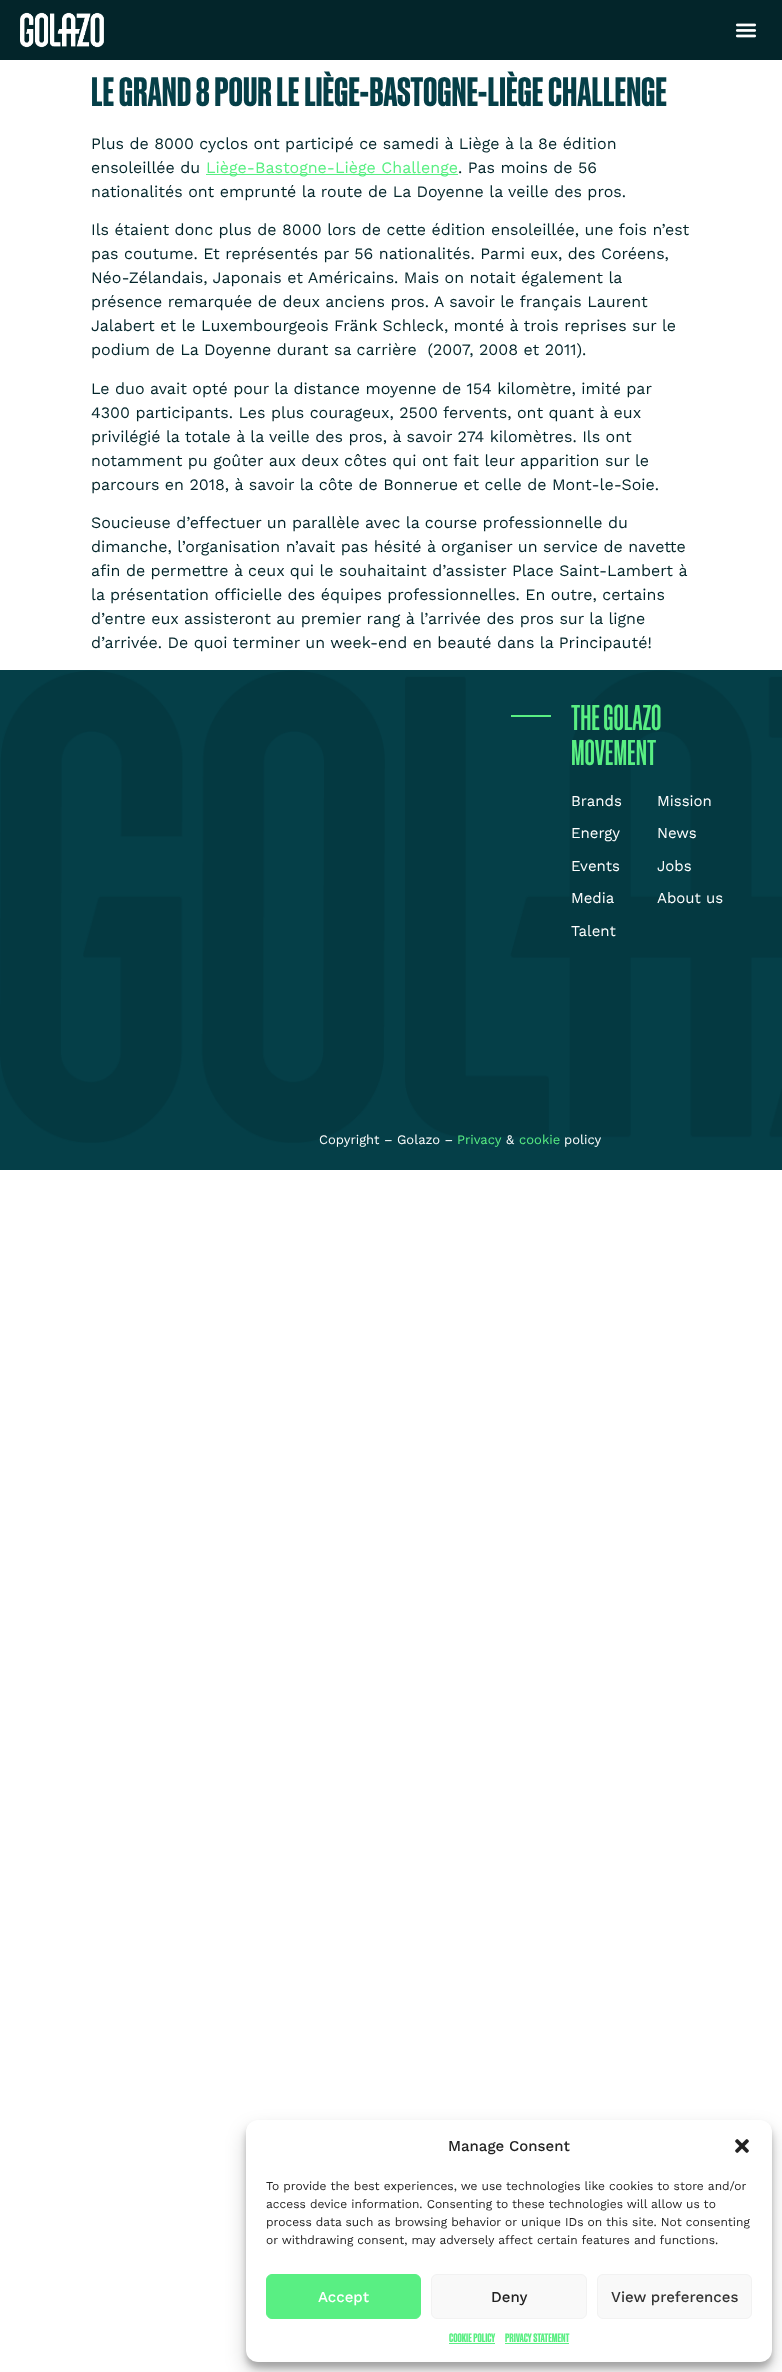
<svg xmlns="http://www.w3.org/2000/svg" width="782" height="2372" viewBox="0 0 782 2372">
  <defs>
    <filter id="blur1" x="-50%" y="-200%" width="200%" height="500%"><feGaussianBlur stdDeviation="3"/></filter>
    <filter id="blur2" x="-50%" y="-200%" width="200%" height="500%"><feGaussianBlur stdDeviation="10"/></filter>
  </defs>
  <rect width="100%" height="100%" fill="#ffffff"/>
  <rect x="0" y="0" width="782" height="60" fill="#03252a"/>
  <image x="20" y="12" width="84" height="36" href="img1.png"/>
  <image x="735" y="23" width="22" height="15" href="img2.png"/>
  <text x="91" y="106" font-family="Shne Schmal" font-size="40" font-weight="bold" fill="#053f48">LE GRAND 8 POUR LE LIÈGE-BASTOGNE-LIÈGE CHALLENGE</text>
  <text x="91" y="149" font-family="Work Sans" font-size="16" fill="#03252a">Plus de 8000 cyclos ont participé ce samedi à Liège à la 8e édition</text>
  <text x="91" y="173" font-family="Work Sans" font-size="16" fill="#03252a">ensoleillée du</text>
  <rect x="206" y="174" width="252" height="1" fill="#59ef83"/>
  <text x="206" y="173" font-family="Work Sans" font-size="16" fill="#59ef83">Liège-Bastogne-Liège Challenge</text>
  <text x="458" y="173" font-family="Work Sans" font-size="16" fill="#03252a">. Pas moins de 56</text>
  <text x="91" y="197" font-family="Work Sans" font-size="16" fill="#03252a">nationalités ont emprunté la route de La Doyenne la veille des pros.</text>
  <text x="91" y="235" font-family="Work Sans" font-size="16" fill="#03252a">Ils étaient donc plus de 8000 lors de cette édition ensoleillée, une fois n’est</text>
  <text x="91" y="259" font-family="Work Sans" font-size="16" fill="#03252a">pas coutume. Et représentés par 56 nationalités. Parmi eux, des Coréens,</text>
  <text x="91" y="283" font-family="Work Sans" font-size="16" fill="#03252a">Néo-Zélandais, Japonais et Américains. Mais on notait également la</text>
  <text x="91" y="307" font-family="Work Sans" font-size="16" fill="#03252a">présence remarquée de deux anciens pros. A savoir le français Laurent</text>
  <text x="91" y="331" font-family="Work Sans" font-size="16" fill="#03252a">Jalabert et le Luxembourgeois Fränk Schleck, monté à trois reprises sur le</text>
  <text x="91" y="355" font-family="Work Sans" font-size="16" fill="#03252a" xml:space="preserve">podium de La Doyenne durant sa carrière  (2007, 2008 et 2011).</text>
  <text x="91" y="394" font-family="Work Sans" font-size="16" fill="#03252a">Le duo avait opté pour la distance moyenne de 154 kilomètre, imité par</text>
  <text x="91" y="418" font-family="Work Sans" font-size="16" fill="#03252a">4300 participants. Les plus courageux, 2500 fervents, ont quant à eux</text>
  <text x="91" y="442" font-family="Work Sans" font-size="16" fill="#03252a">privilégié la totale à la veille des pros, à savoir 274 kilomètres. Ils ont</text>
  <text x="91" y="466" font-family="Work Sans" font-size="16" fill="#03252a">notamment pu goûter aux deux côtes qui ont fait leur apparition sur le</text>
  <text x="91" y="490" font-family="Work Sans" font-size="16" fill="#03252a">parcours en 2018, à savoir la côte de Bonnerue et celle de Mont-le-Soie.</text>
  <text x="91" y="528" font-family="Work Sans" font-size="16" fill="#03252a">Soucieuse d’effectuer un parallèle avec la course professionnelle du</text>
  <text x="91" y="552" font-family="Work Sans" font-size="16" fill="#03252a">dimanche, l’organisation n’avait pas hésité à organiser un service de navette</text>
  <text x="91" y="576" font-family="Work Sans" font-size="16" fill="#03252a">afin de permettre à ceux qui le souhaitaint d’assister Place Saint-Lambert à</text>
  <text x="91" y="600" font-family="Work Sans" font-size="16" fill="#03252a">la présentation officielle des équipes professionnelles. En outre, certains</text>
  <text x="91" y="624" font-family="Work Sans" font-size="16" fill="#03252a">d’entre eux assisteront au premier rang à l’arrivée des pros sur la ligne</text>
  <text x="91" y="648" font-family="Work Sans" font-size="16" fill="#03252a">d’arrivée. De quoi terminer un week-end en beauté dans la Principauté!</text>
  <rect x="0" y="670" width="782" height="500" fill="#053f48"/>
  <image x="0" y="670" width="782" height="473" href="img3.png"/>
  <rect x="511" y="715" width="40" height="2" fill="#59ef83"/>
  <text x="571" y="730" font-family="Shne Schmal" font-size="35" font-weight="500" fill="#59ef83">THE GOLAZO</text>
  <text x="571" y="765" font-family="Shne Schmal" font-size="35" font-weight="500" fill="#59ef83">MOVEMENT</text>
  <text x="571" y="806" font-family="Work Sans" font-size="15" fill="#ffffff">Brands</text>
  <text x="571" y="838" font-family="Work Sans" font-size="15" fill="#ffffff">Energy</text>
  <text x="571" y="871" font-family="Work Sans" font-size="15" fill="#ffffff">Events</text>
  <text x="571" y="903" font-family="Work Sans" font-size="15" fill="#ffffff">Media</text>
  <text x="571" y="936" font-family="Work Sans" font-size="15" fill="#ffffff">Talent</text>
  <text x="657" y="806" font-family="Work Sans" font-size="15" fill="#ffffff">Mission</text>
  <text x="657" y="838" font-family="Work Sans" font-size="15" fill="#ffffff">News</text>
  <text x="657" y="871" font-family="Work Sans" font-size="15" fill="#ffffff">Jobs</text>
  <text x="657" y="903" font-family="Work Sans" font-size="15" fill="#ffffff">About us</text>
  <text x="319" y="1144" font-family="Work Sans" font-size="13" fill="#ffffff">Copyright – Golazo –</text>
  <text x="457" y="1144" font-family="Work Sans" font-size="13" fill="#59ef83">Privacy</text>
  <text x="506" y="1144" font-family="Work Sans" font-size="13" fill="#ffffff">&amp;</text>
  <text x="519" y="1144" font-family="Work Sans" font-size="13" fill="#59ef83">cookie</text>
  <text x="564" y="1144" font-family="Work Sans" font-size="13" fill="#ffffff">policy</text>
  <rect x="246" y="2126" width="526" height="242" rx="12" fill="#000000" fill-opacity="0.23" filter="url(#blur1)"/>
  <rect x="246" y="2130" width="526" height="242" rx="12" fill="#000000" fill-opacity="0.19" filter="url(#blur2)"/>
  <rect x="246" y="2120" width="526" height="242" rx="12" fill="#ffffff"/>
  <text x="448" y="2151" font-family="Work Sans" font-size="15" font-weight="500" fill="#222222">Manage Consent</text>
  <image x="735" y="2139" width="14" height="14" href="img4.png"/>
  <text x="266" y="2190" font-family="Work Sans" font-size="12" fill="#222222">To provide the best experiences, we use technologies like cookies to store and/or</text>
  <text x="266" y="2208" font-family="Work Sans" font-size="12" fill="#222222">access device information. Consenting to these technologies will allow us to</text>
  <text x="266" y="2226" font-family="Work Sans" font-size="12" fill="#222222">process data such as browsing behavior or unique IDs on this site. Not consenting</text>
  <text x="266" y="2244" font-family="Work Sans" font-size="12" fill="#222222">or withdrawing consent, may adversely affect certain features and functions.</text>
  <rect x="266.5" y="2274.5" width="154" height="44" rx="5.5" fill="#59ef83" stroke="#59ef83"/>
  <text x="318" y="2302" font-family="Work Sans" font-size="15" font-weight="500" fill="#ffffff">Accept</text>
  <rect x="431.5" y="2274.5" width="155" height="44" rx="5.5" fill="#f9f9f9" stroke="#f2f2f2"/>
  <text x="491" y="2302" font-family="Work Sans" font-size="15" font-weight="500" fill="#222222">Deny</text>
  <rect x="597.5" y="2274.5" width="154" height="44" rx="5.5" fill="#f9f9f9" stroke="#f2f2f2"/>
  <text x="611" y="2302" font-family="Work Sans" font-size="15" font-weight="500" fill="#333333">View preferences</text>
  <text x="449" y="2342" font-family="Shne Schmal" font-size="12" font-weight="bold" fill="#59ef83">COOKIE POLICY</text>
  <rect x="449" y="2343" width="46" height="1" fill="#59ef83"/>
  <text x="505" y="2342" font-family="Shne Schmal" font-size="12" font-weight="bold" fill="#59ef83">PRIVACY STATEMENT</text>
  <rect x="505" y="2343" width="64" height="1" fill="#59ef83"/>
</svg>
